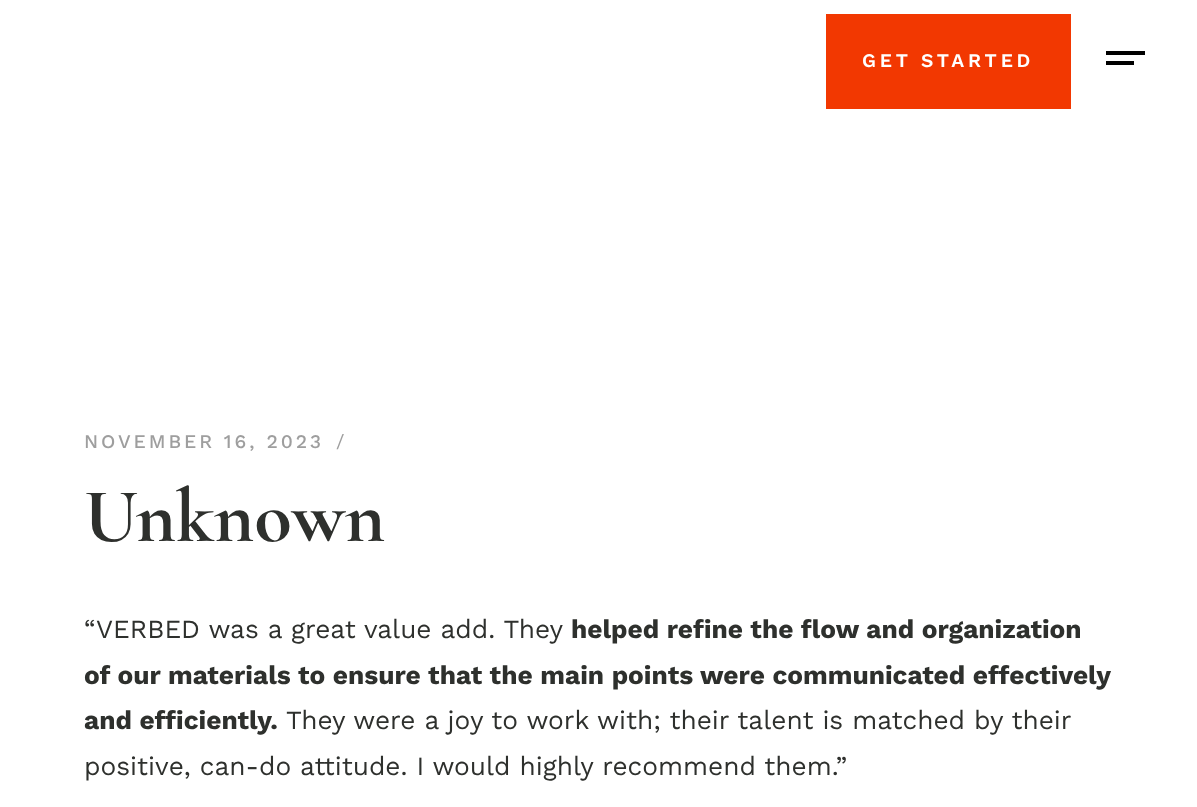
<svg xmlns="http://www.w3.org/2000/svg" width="1197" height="807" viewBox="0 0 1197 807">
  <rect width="100%" height="100%" fill="#ffffff"/>
  <rect x="826" y="14" width="245" height="95" fill="#f23801"/>
  <text x="862" y="67" font-family="Work Sans" font-size="19.25" font-weight="600" letter-spacing="3.8" fill="#ffffff">GET STARTED</text>
  <rect x="1106" y="51" width="39" height="4" fill="#000000"/>
  <rect x="1106" y="61" width="28" height="4" fill="#000000"/>
  <text x="84" y="448" font-family="Work Sans" font-size="19.25" font-weight="500" letter-spacing="2.9" fill="#9e9e9e">NOVEMBER 16, 2023</text>
  <text x="336" y="448" font-family="Work Sans" font-size="19.25" fill="#9e9e9e">/</text>
  <text x="84" y="541" font-family="Cormorant" font-size="77" font-weight="bold" fill="#2e302d">Unknown</text>
  <text x="84" y="638" font-family="Work Sans" font-size="26.25" fill="#2e302d">“VERBED was a great value add. They</text>
  <text x="571" y="638" font-family="Work Sans" font-size="26.25" font-weight="bold" fill="#2e302d">helped refine the flow and organization</text>
  <text x="84" y="684" font-family="Work Sans" font-size="26.25" font-weight="bold" fill="#2e302d">of our materials to ensure that the main points were communicated effectively</text>
  <text x="84" y="729" font-family="Work Sans" font-size="26.25" font-weight="bold" fill="#2e302d">and efficiently.</text>
  <text x="286" y="729" font-family="Work Sans" font-size="26.25" fill="#2e302d">They were a joy to work with; their talent is matched by their</text>
  <text x="84" y="775" font-family="Work Sans" font-size="26.25" fill="#2e302d">positive, can-do attitude. I would highly recommend them.”</text>
</svg>
